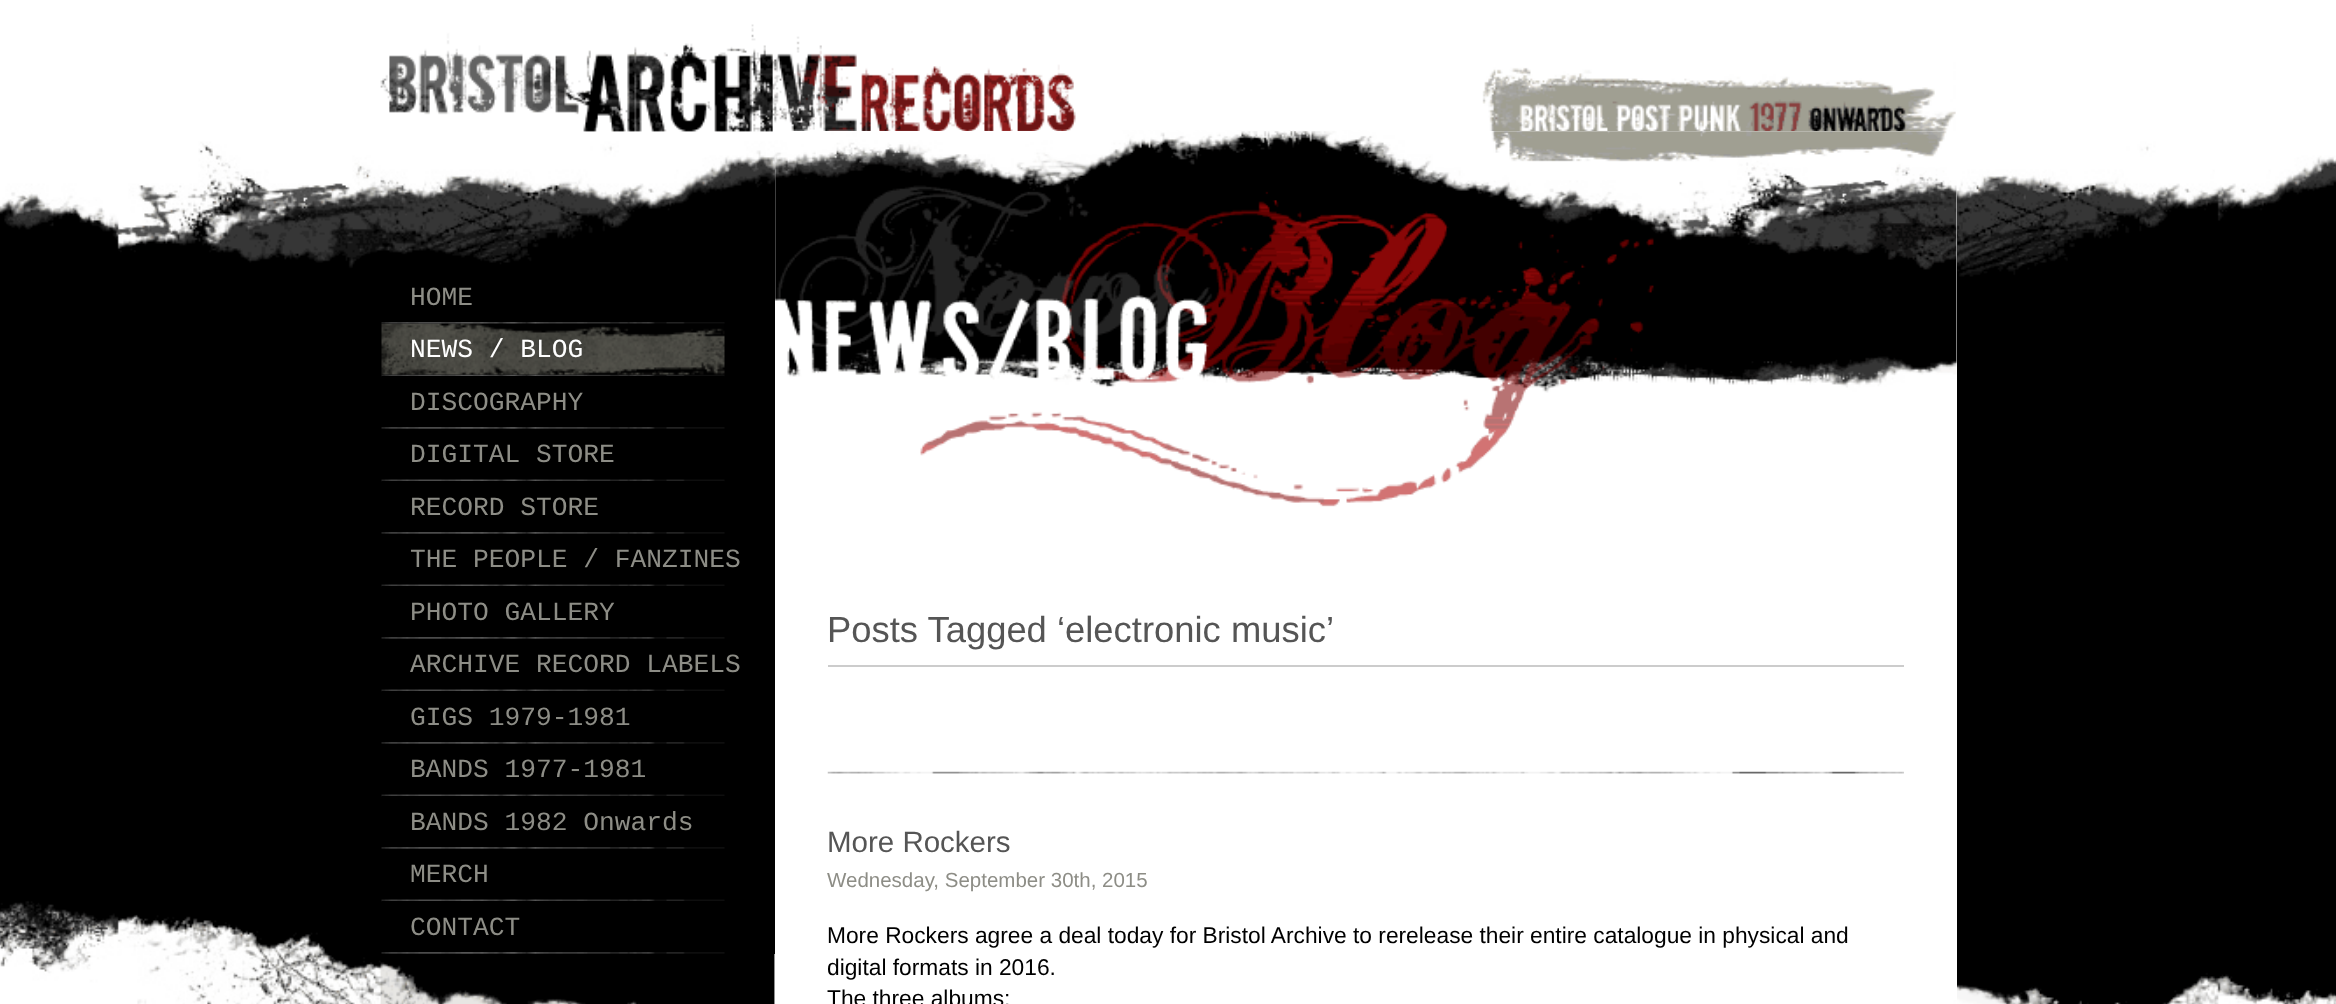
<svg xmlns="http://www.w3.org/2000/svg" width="2336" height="1004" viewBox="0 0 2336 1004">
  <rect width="100%" height="100%" fill="#ffffff"/>
  <image x="0" y="24" width="2336" height="980" href="img1.png"/>
  <image x="381" y="322" width="344" height="2" href="img2.png"/>
  <text x="410" y="305" font-family="Liberation Mono" font-size="26.25" fill="#8d8d86">HOME</text>
  <image x="381" y="374" width="344" height="3" href="img3.png"/>
  <image x="381" y="323" width="344" height="52" href="img4.png"/>
  <text x="410" y="357" font-family="Liberation Mono" font-size="26.25" fill="#ffffff">NEWS / BLOG</text>
  <rect x="382" y="376" width="342" height="1" fill="#000000"/>
  <image x="381" y="427" width="344" height="2" href="img2.png"/>
  <text x="410" y="410" font-family="Liberation Mono" font-size="26.25" fill="#8d8d86">DISCOGRAPHY</text>
  <image x="381" y="479" width="344" height="3" href="img3.png"/>
  <text x="410" y="462" font-family="Liberation Mono" font-size="26.25" fill="#8d8d86">DIGITAL STORE</text>
  <rect x="382" y="481" width="342" height="1" fill="#000000"/>
  <image x="381" y="532" width="344" height="2" href="img2.png"/>
  <text x="410" y="515" font-family="Liberation Mono" font-size="26.25" fill="#8d8d86">RECORD STORE</text>
  <rect x="774" y="552" width="1" height="34" fill="#000000"/>
  <image x="381" y="584" width="344" height="3" href="img3.png"/>
  <text x="410" y="567" font-family="Liberation Mono" font-size="26.25" fill="#8d8d86">THE PEOPLE / FANZINES</text>
  <rect x="382" y="586" width="393" height="53" fill="#000000"/>
  <image x="381" y="637" width="344" height="2" href="img2.png"/>
  <text x="410" y="620" font-family="Liberation Mono" font-size="26.25" fill="#8d8d86">PHOTO GALLERY</text>
  <rect x="774" y="639" width="1" height="52" fill="#000000"/>
  <image x="381" y="689" width="344" height="3" href="img3.png"/>
  <text x="410" y="672" font-family="Liberation Mono" font-size="26.25" fill="#8d8d86">ARCHIVE RECORD LABELS</text>
  <rect x="382" y="691" width="393" height="53" fill="#000000"/>
  <image x="381" y="742" width="344" height="2" href="img2.png"/>
  <text x="410" y="725" font-family="Liberation Mono" font-size="26.25" fill="#8d8d86">GIGS 1979-1981</text>
  <rect x="774" y="744" width="1" height="52" fill="#000000"/>
  <image x="381" y="794" width="344" height="3" href="img3.png"/>
  <text x="410" y="777" font-family="Liberation Mono" font-size="26.25" fill="#8d8d86">BANDS 1977-1981</text>
  <rect x="382" y="796" width="393" height="53" fill="#000000"/>
  <image x="381" y="847" width="344" height="2" href="img2.png"/>
  <text x="410" y="830" font-family="Liberation Mono" font-size="26.25" fill="#8d8d86">BANDS 1982 Onwards</text>
  <rect x="774" y="849" width="1" height="52" fill="#000000"/>
  <image x="381" y="899" width="344" height="3" href="img3.png"/>
  <text x="410" y="882" font-family="Liberation Mono" font-size="26.25" fill="#8d8d86">MERCH</text>
  <rect x="382" y="901" width="393" height="53" fill="#000000"/>
  <image x="381" y="952" width="344" height="2" href="img2.png"/>
  <text x="410" y="935" font-family="Liberation Mono" font-size="26.25" fill="#8d8d86">CONTACT</text>
  <rect x="775" y="131" width="1182" height="869" fill="#ffffff"/>
  <image x="775" y="131" width="1182" height="376" href="img5.png"/>
  <text x="827" y="642" font-family="Liberation Sans" font-size="36.4" fill="#555555">Posts Tagged ‘electronic music’</text>
  <rect x="828" y="665" width="1076" height="2" fill="#cccccc"/>
  <image x="827" y="771" width="1077" height="3" href="img6.png"/>
  <text x="827" y="852" font-family="Liberation Sans" font-size="29.5" fill="#555555">More Rockers</text>
  <text x="827" y="887" font-family="Liberation Sans" font-size="20.5" fill="#8d8d86">Wednesday, September 30th, 2015</text>
  <text x="827" y="943" font-family="Liberation Sans" font-size="22.75" fill="#000000">More Rockers agree a deal today for Bristol Archive to rerelease their entire catalogue in physical and</text>
  <text x="827" y="975" font-family="Liberation Sans" font-size="22.75" fill="#000000">digital formats in 2016.</text>
  <text x="827" y="1006" font-family="Liberation Sans" font-size="22.75" fill="#000000">The three albums:</text>
</svg>
